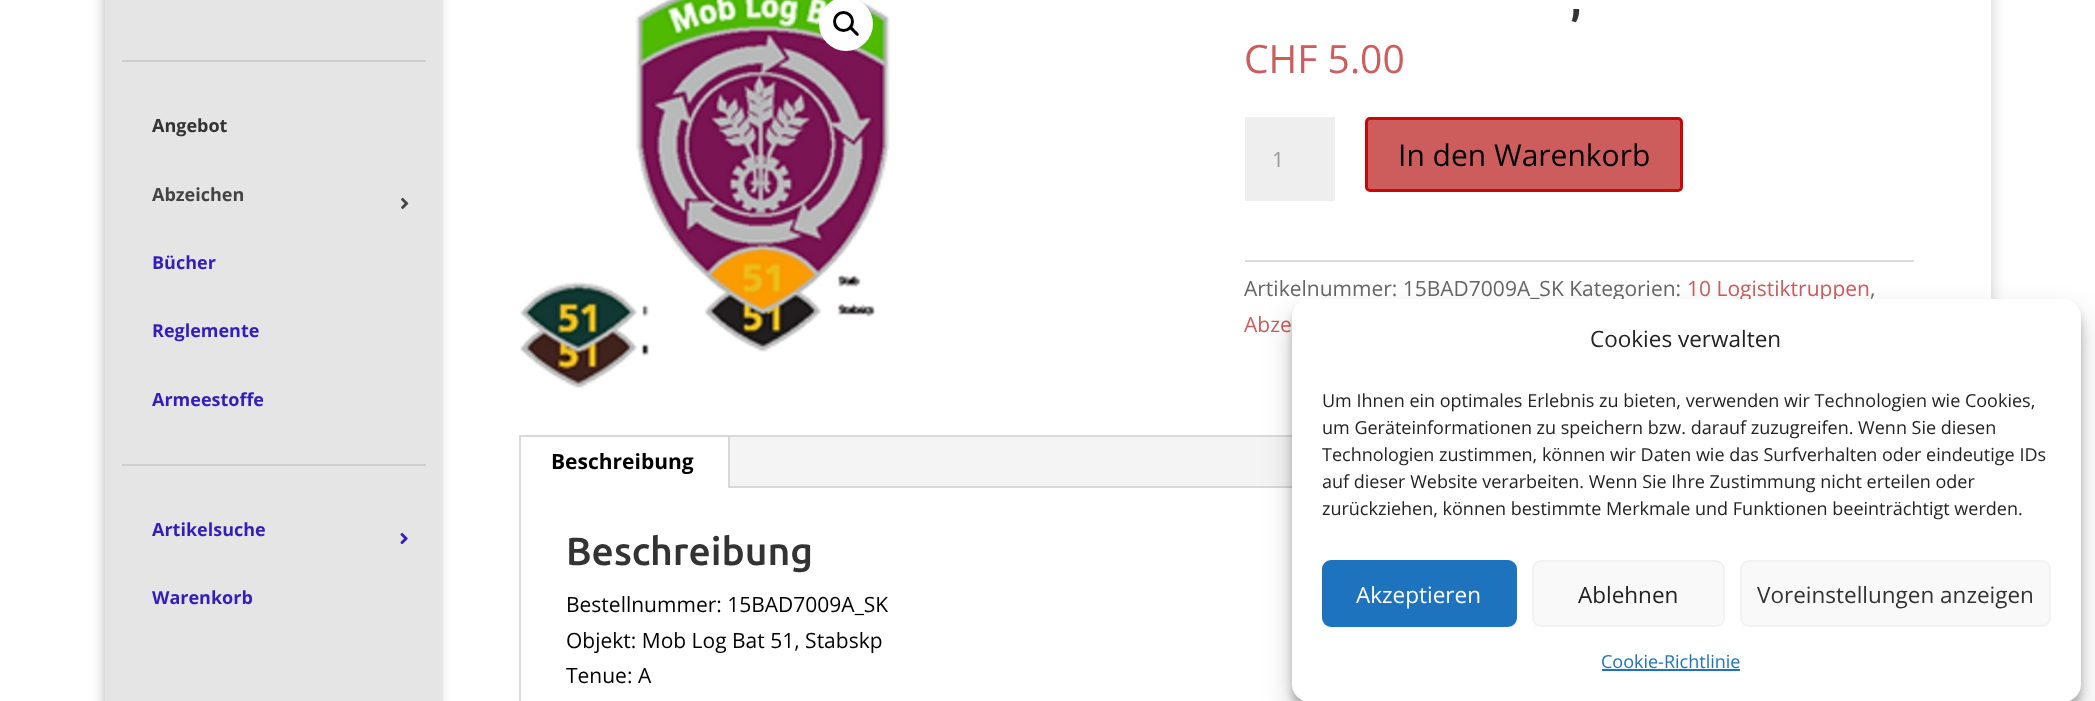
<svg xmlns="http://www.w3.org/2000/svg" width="2095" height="701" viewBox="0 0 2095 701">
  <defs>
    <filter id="blur1" x="-50%" y="-200%" width="200%" height="500%"><feGaussianBlur stdDeviation="7.5"/></filter>
    <filter id="blur2" x="-50%" y="-200%" width="200%" height="500%"><feGaussianBlur stdDeviation="5"/></filter>
    <filter id="blur3" x="-50%" y="-200%" width="200%" height="500%"><feGaussianBlur stdDeviation="4.5"/></filter>
    <filter id="blur4" x="-50%" y="-200%" width="200%" height="500%"><feGaussianBlur stdDeviation="15"/></filter>
  </defs>
  <rect width="100%" height="100%" fill="#ffffff"/>
  <rect x="105" y="-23" width="1886" height="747" fill="#000000" fill-opacity="0.2" filter="url(#blur1)"/>
  <rect x="443" y="0" width="1548" height="701" fill="#ffffff"/>
  <rect x="105" y="-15" width="338" height="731" fill="#000000" fill-opacity="0.1" filter="url(#blur2)"/>
  <rect x="105" y="0" width="338" height="701" fill="#e5e5e5"/>
  <rect x="122" y="60" width="304" height="2" fill="#cecece"/>
  <text x="152" y="132" font-family="Open Sans" font-size="18" font-weight="bold" fill="#333333">Angebot</text>
  <text x="152" y="201" font-family="Open Sans" font-size="18" font-weight="bold" fill="#444444">Abzeichen</text>
  <image x="401" y="197" width="8" height="12" href="img1.png"/>
  <text x="152" y="269" font-family="Open Sans" font-size="18" font-weight="bold" fill="#351dba">Bücher</text>
  <text x="152" y="337" font-family="Open Sans" font-size="18" font-weight="bold" fill="#351dba">Reglemente</text>
  <text x="152" y="406" font-family="Open Sans" font-size="18" font-weight="bold" fill="#351dba">Armeestoffe</text>
  <rect x="122" y="464" width="304" height="2" fill="#cecece"/>
  <text x="152" y="536" font-family="Open Sans" font-size="18" font-weight="bold" fill="#351dba">Artikelsuche</text>
  <image x="400" y="533" width="8" height="12" href="img2.png"/>
  <text x="152" y="604" font-family="Open Sans" font-size="18" font-weight="bold" fill="#351dba">Warenkorb</text>
  <image x="520" y="0" width="370" height="389" href="img3.png"/>
  <circle cx="846" cy="24" r="27" fill="#ffffff"/>
  <circle cx="843.5" cy="21.5" r="9" fill="none" stroke="#000000" stroke-width="3"/>
  <path d="M850 27C851.5 25 854.5 29 855 30C856 31 860 33.5 858.5 35.5C856.5 37 854 33 853 32C852 31 848 28.5 850 27Z" fill="#000000"/>
  <text x="1570" y="15" font-family="Ubuntu" font-size="45" font-weight="500" fill="#333333">,</text>
  <text x="1244" y="73" font-family="Open Sans" font-size="39" fill="#cd5c5c">CHF 5.00</text>
  <rect x="1245" y="117" width="90" height="84" fill="#eeeeee"/>
  <text x="1272" y="167" font-family="Open Sans" font-size="21" fill="#999999">1</text>
  <rect x="1366.5" y="118.5" width="315" height="72" rx="3.5" fill="#cd5c5c" stroke="#ca0606" stroke-width="3"/>
  <text x="1398" y="166" font-family="Open Sans" font-size="30" fill="#000000">In den Warenkorb</text>
  <rect x="1245" y="260" width="669" height="2" fill="#dadada"/>
  <text x="1244" y="296" font-family="Open Sans" font-size="21" fill="#666666">Artikelnummer: 15BAD7009A_SK Kategorien:</text>
  <text x="1687" y="296" font-family="Open Sans" font-size="21" fill="#cd5c5c">10 Logistiktruppen</text>
  <text x="1870" y="296" font-family="Open Sans" font-size="21" fill="#666666">,</text>
  <text x="1244" y="332" font-family="Open Sans" font-size="21" fill="#cd5c5c">Abze</text>
  <rect x="520" y="436" width="1393" height="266" fill="none" stroke="#d9d9d9" stroke-width="2"/>
  <rect x="730" y="437" width="562" height="49" fill="#f4f4f4"/>
  <rect x="728" y="437" width="2" height="51" fill="#d9d9d9"/>
  <text x="551" y="469" font-family="Open Sans" font-size="21" font-weight="bold" fill="#000000">Beschreibung</text>
  <rect x="730" y="486" width="562" height="2" fill="#d9d9d9"/>
  <text x="566" y="565" font-family="Ubuntu" font-size="39" font-weight="500" fill="#333333">Beschreibung</text>
  <text x="566" y="612" font-family="Open Sans" font-size="21" fill="#000000">Bestellnummer: 15BAD7009A_SK</text>
  <text x="566" y="648" font-family="Open Sans" font-size="21" fill="#000000">Objekt: Mob Log Bat 51, Stabskp</text>
  <text x="566" y="683" font-family="Open Sans" font-size="21" fill="#000000">Tenue: A</text>
  <rect x="1292" y="308" width="789" height="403" rx="18" fill="#000000" fill-opacity="0.23" filter="url(#blur3)"/>
  <rect x="1292" y="314" width="789" height="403" rx="18" fill="#000000" fill-opacity="0.19" filter="url(#blur4)"/>
  <rect x="1292" y="299" width="789" height="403" rx="18" fill="#ffffff"/>
  <text x="1590" y="347" font-family="Open Sans" font-size="22.5" fill="#222222">Cookies verwalten</text>
  <text x="1322" y="407" font-family="Open Sans" font-size="18" fill="#222222">Um Ihnen ein optimales Erlebnis zu bieten, verwenden wir Technologien wie Cookies,</text>
  <text x="1322" y="434" font-family="Open Sans" font-size="18" fill="#222222">um Geräteinformationen zu speichern bzw. darauf zuzugreifen. Wenn Sie diesen</text>
  <text x="1322" y="461" font-family="Open Sans" font-size="18" fill="#222222">Technologien zustimmen, können wir Daten wie das Surfverhalten oder eindeutige IDs</text>
  <text x="1322" y="488" font-family="Open Sans" font-size="18" fill="#222222">auf dieser Website verarbeiten. Wenn Sie Ihre Zustimmung nicht erteilen oder</text>
  <text x="1322" y="515" font-family="Open Sans" font-size="18" fill="#222222">zurückziehen, können bestimmte Merkmale und Funktionen beeinträchtigt werden.</text>
  <rect x="1323" y="561" width="193" height="65" rx="8" fill="#1e73be" stroke="#1e73be" stroke-width="2"/>
  <text x="1356" y="603" font-family="Open Sans" font-size="22.5" fill="#ffffff">Akzeptieren</text>
  <rect x="1533" y="561" width="191" height="65" rx="8" fill="#f9f9f9" stroke="#f2f2f2" stroke-width="2"/>
  <text x="1578" y="603" font-family="Open Sans" font-size="22.5" fill="#222222">Ablehnen</text>
  <rect x="1741" y="561" width="309" height="65" rx="8" fill="#f9f9f9" stroke="#f2f2f2" stroke-width="2"/>
  <text x="1757" y="603" font-family="Open Sans" font-size="22.5" fill="#333333">Voreinstellungen anzeigen</text>
  <text x="1601" y="668" font-family="Open Sans" font-size="18" fill="#1e73be">Cookie-Richtlinie</text>
  <rect x="1602" y="669" width="138" height="2" fill="#1e73be"/>
</svg>
